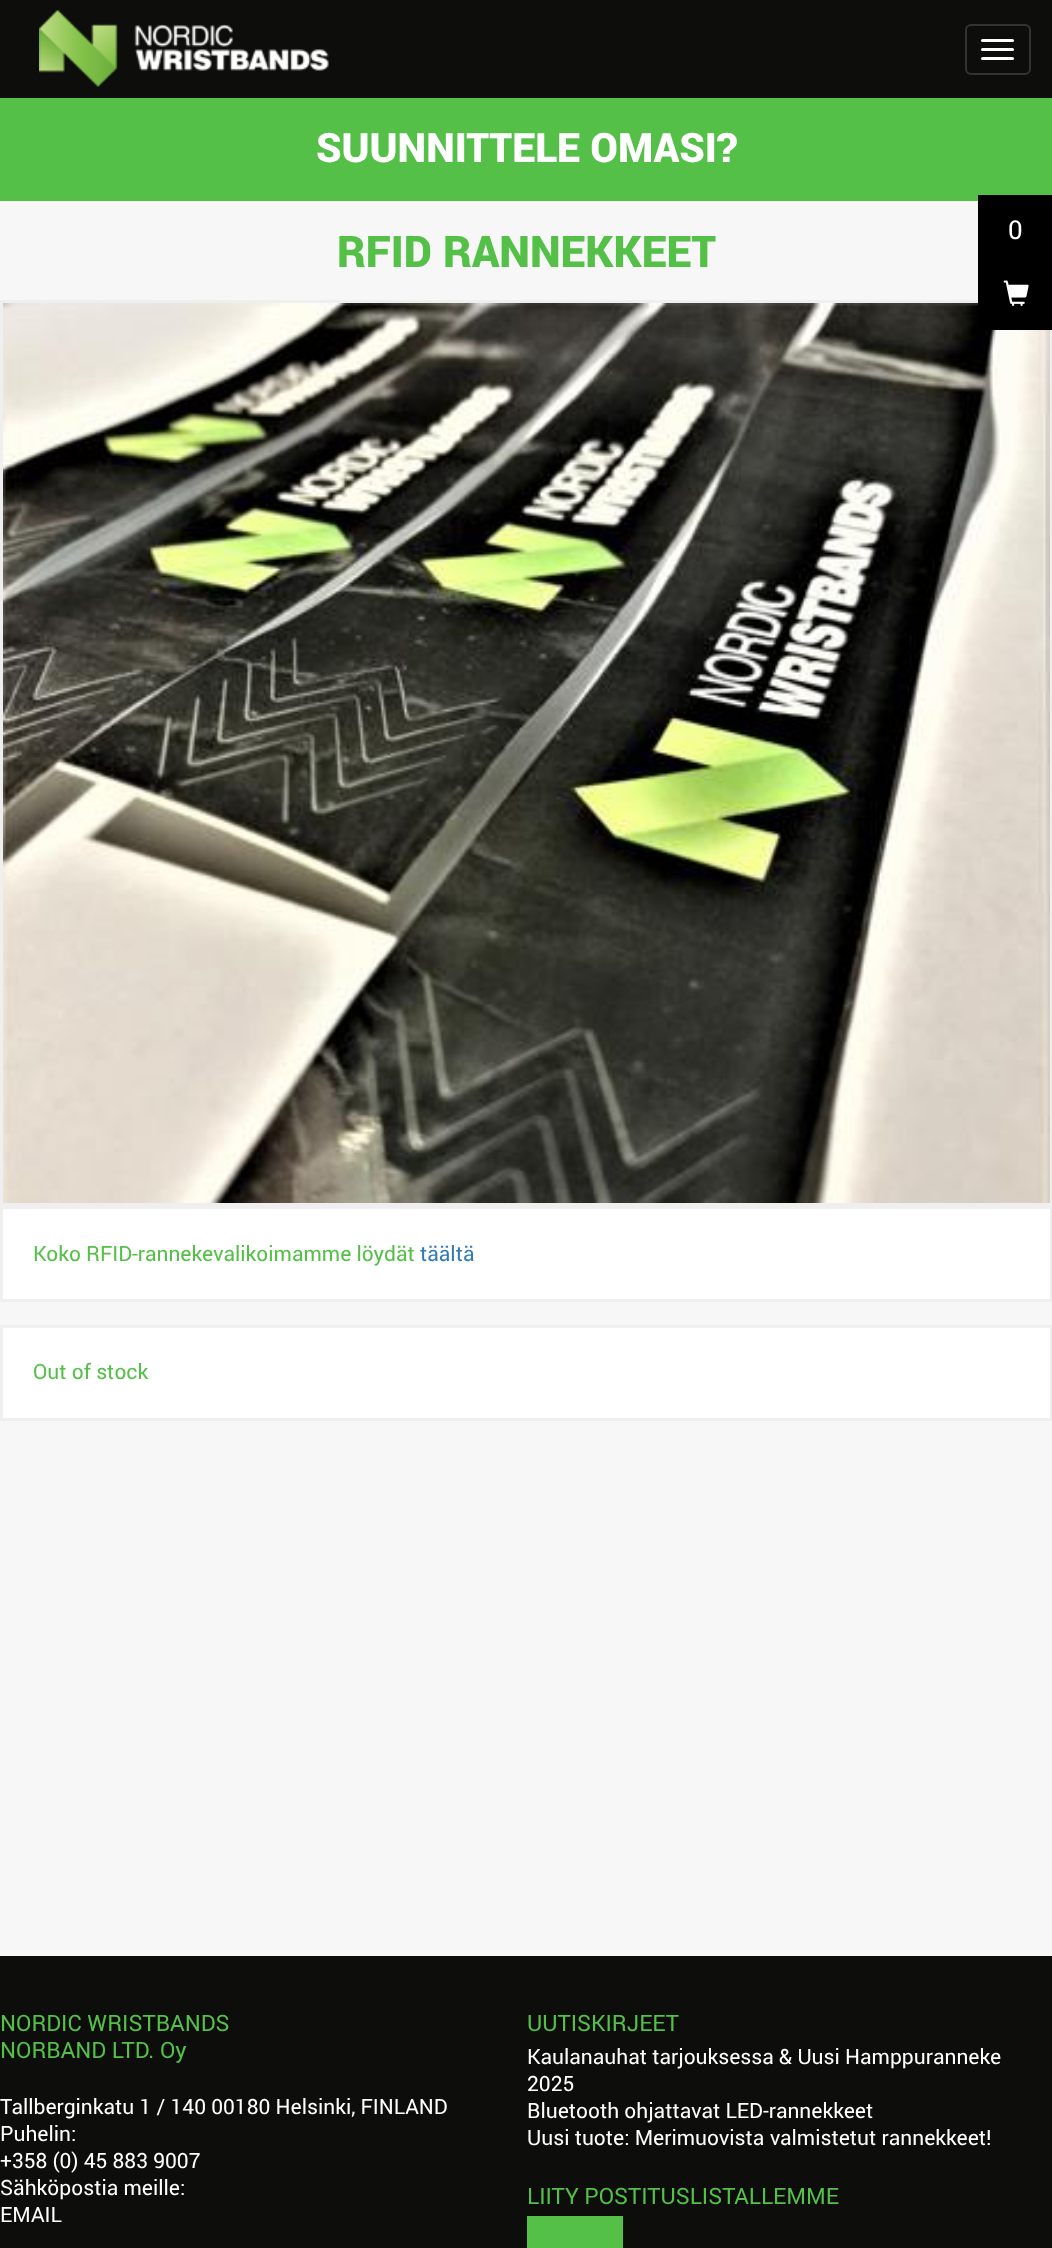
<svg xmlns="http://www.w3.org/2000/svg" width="1052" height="2248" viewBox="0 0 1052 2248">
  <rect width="100%" height="100%" fill="#f7f7f7"/>
  <rect x="0" y="0" width="1052" height="98" fill="#0d0d0b"/>
  <image x="39" y="10" width="290" height="77" href="img1.png"/>
  <rect x="966" y="25" width="64" height="49" rx="5" fill="none" stroke="#333333" stroke-width="2"/>
  <rect x="981" y="39" width="33" height="3" rx="1.5" fill="#ffffff"/>
  <rect x="981" y="48" width="33" height="3" rx="1.5" fill="#ffffff"/>
  <rect x="981" y="57" width="33" height="3" rx="1.5" fill="#ffffff"/>
  <rect x="0" y="98" width="1052" height="103" fill="#54c048"/>
  <text x="316" y="162" font-family="Roboto" font-size="40.5" font-weight="900" fill="#ffffff">SUUNNITTELE OMASI?</text>
  <text x="337" y="267" font-family="Roboto" font-size="43.5" font-weight="900" fill="#54c048">RFID RANNEKKEET</text>
  <rect x="1.5" y="301.5" width="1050" height="903" fill="none" stroke="#efefef" stroke-width="3"/>
  <image x="3" y="303" width="1047" height="900" href="img2.png"/>
  <rect x="1.5" y="1207.5" width="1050" height="93" fill="#ffffff" stroke="#efefef" stroke-width="3"/>
  <text x="33" y="1261" font-family="Roboto" font-size="21" fill="#54c048">Koko RFID-rannekevalikoimamme löydät</text>
  <text x="420" y="1261" font-family="Roboto" font-size="21" fill="#337ab7">täältä</text>
  <rect x="1.5" y="1326.5" width="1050" height="93" fill="#ffffff" stroke="#efefef" stroke-width="3"/>
  <text x="33" y="1379" font-family="Roboto" font-size="21" fill="#54c048">Out of stock</text>
  <rect x="978" y="195" width="74" height="135" fill="#000000"/>
  <text x="1008" y="239" font-family="Roboto" font-size="26" fill="#ffffff">0</text>
  <image x="1003" y="280" width="26" height="26" href="img3.png"/>
  <rect x="0" y="1956" width="1052" height="292" fill="#0d0d0b"/>
  <text x="0" y="2031" font-family="Roboto" font-size="22.5" fill="#54c048">NORDIC WRISTBANDS</text>
  <text x="0" y="2058" font-family="Roboto" font-size="22.5" fill="#54c048">NORBAND LTD. Oy</text>
  <text x="0" y="2114" font-family="Roboto" font-size="21" fill="#ffffff">Tallberginkatu 1 / 140 00180 Helsinki, FINLAND</text>
  <text x="0" y="2141" font-family="Roboto" font-size="21" fill="#ffffff">Puhelin:</text>
  <text x="0" y="2168" font-family="Roboto" font-size="21" fill="#ffffff">+358 (0) 45 883 9007</text>
  <text x="0" y="2195" font-family="Roboto" font-size="21" fill="#ffffff">Sähköpostia meille:</text>
  <text x="0" y="2222" font-family="Roboto" font-size="21" fill="#ffffff">EMAIL</text>
  <text x="527" y="2031" font-family="Roboto" font-size="22.5" fill="#54c048">UUTISKIRJEET</text>
  <text x="527" y="2064" font-family="Roboto" font-size="21" fill="#ffffff">Kaulanauhat tarjouksessa &amp; Uusi Hamppuranneke</text>
  <text x="527" y="2091" font-family="Roboto" font-size="21" fill="#ffffff">2025</text>
  <text x="527" y="2118" font-family="Roboto" font-size="21" fill="#ffffff">Bluetooth ohjattavat LED-rannekkeet</text>
  <text x="527" y="2145" font-family="Roboto" font-size="21" fill="#ffffff">Uusi tuote: Merimuovista valmistetut rannekkeet!</text>
  <text x="527" y="2204" font-family="Roboto" font-size="22.5" fill="#54c048">LIITY POSTITUSLISTALLEMME</text>
  <rect x="527" y="2216" width="96" height="32" fill="#54c048"/>
</svg>
